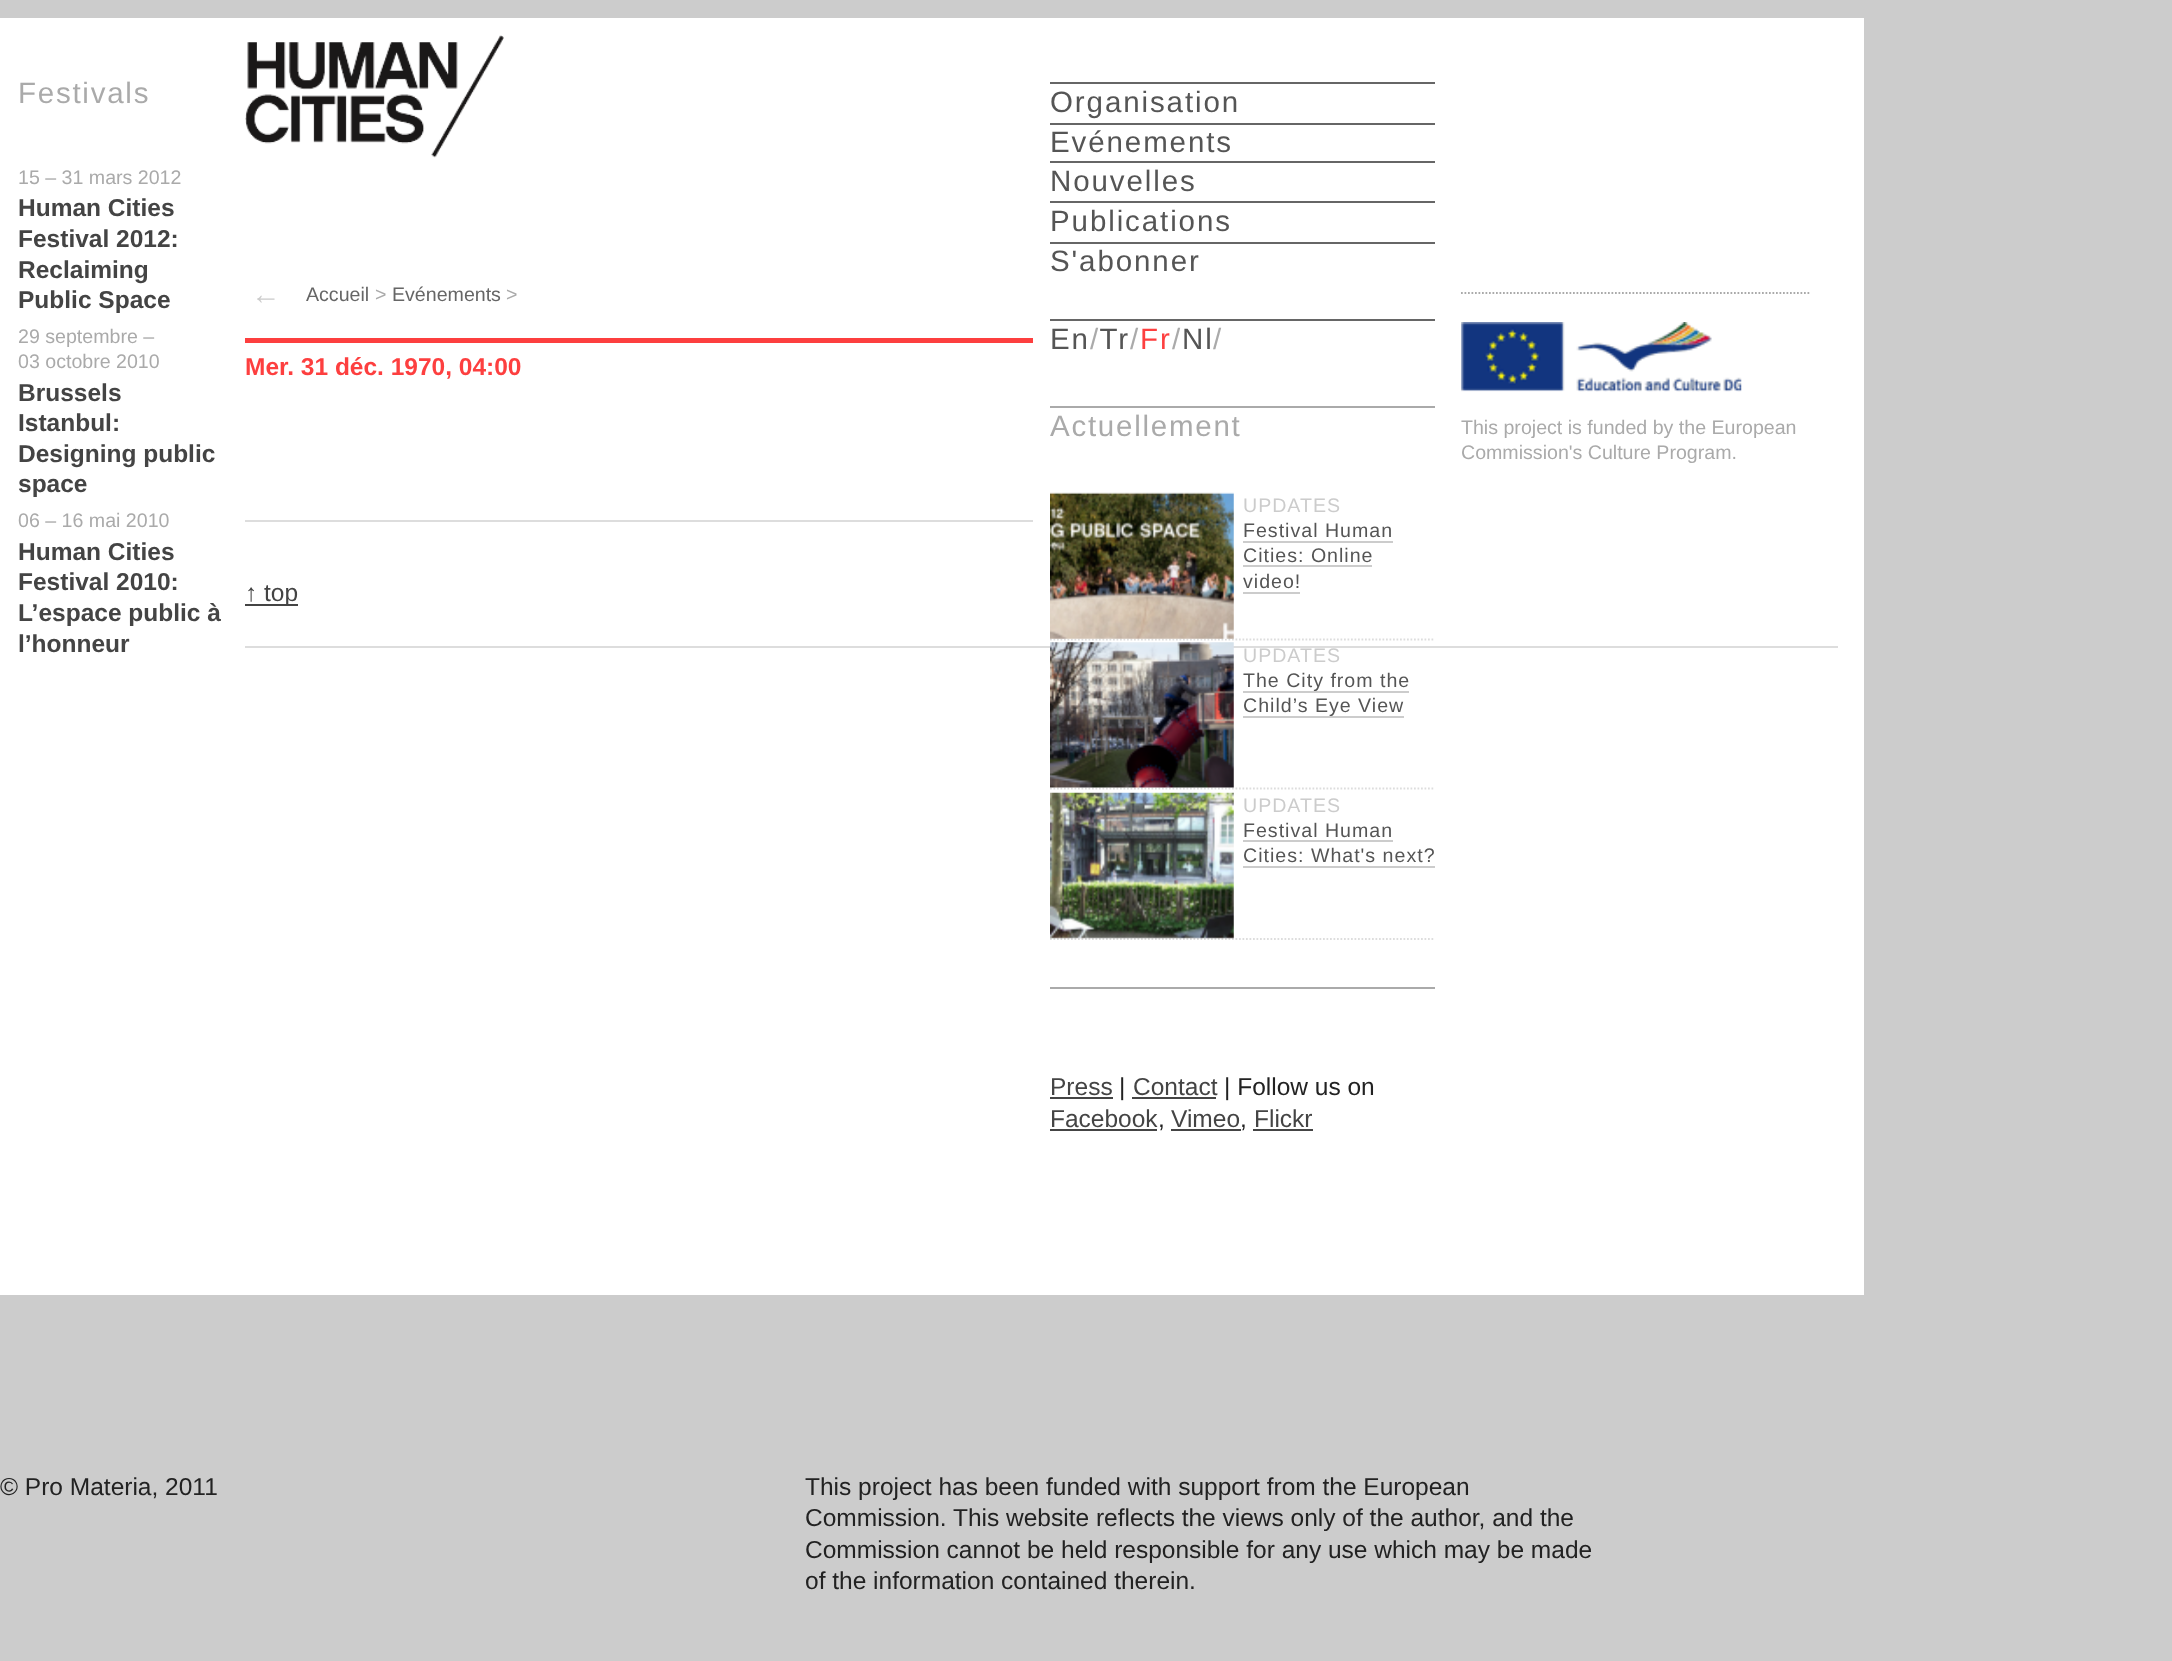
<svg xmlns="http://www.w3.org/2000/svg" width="2172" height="1661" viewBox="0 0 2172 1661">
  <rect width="100%" height="100%" fill="#cccccc"/>
  <rect x="0" y="18" width="1864" height="1277" fill="#ffffff"/>
  <image x="245" y="35" width="259" height="123" href="img1.png"/>
  <text x="18" y="103" font-family="Liberation Sans" font-size="29.5" letter-spacing="1.75" fill="#aaaaaa">Festivals</text>
  <text x="18" y="184" font-family="Liberation Sans" font-size="19.6" fill="#aaaaaa">15 – 31 mars 2012</text>
  <text x="18" y="216" font-family="Liberation Sans" font-size="24.5" font-weight="bold" fill="#444444">Human Cities</text>
  <text x="18" y="247" font-family="Liberation Sans" font-size="24.5" font-weight="bold" fill="#444444">Festival 2012:</text>
  <text x="18" y="278" font-family="Liberation Sans" font-size="24.5" font-weight="bold" fill="#444444">Reclaiming</text>
  <text x="18" y="308" font-family="Liberation Sans" font-size="24.5" font-weight="bold" fill="#444444">Public Space</text>
  <text x="18" y="343" font-family="Liberation Sans" font-size="19.6" fill="#aaaaaa">29 septembre –</text>
  <text x="18" y="368" font-family="Liberation Sans" font-size="19.6" fill="#aaaaaa">03 octobre 2010</text>
  <text x="18" y="401" font-family="Liberation Sans" font-size="24.5" font-weight="bold" fill="#444444">Brussels</text>
  <text x="18" y="431" font-family="Liberation Sans" font-size="24.5" font-weight="bold" fill="#444444">Istanbul:</text>
  <text x="18" y="462" font-family="Liberation Sans" font-size="24.5" font-weight="bold" fill="#444444">Designing public</text>
  <text x="18" y="492" font-family="Liberation Sans" font-size="24.5" font-weight="bold" fill="#444444">space</text>
  <text x="18" y="527" font-family="Liberation Sans" font-size="19.6" fill="#aaaaaa">06 – 16 mai 2010</text>
  <text x="18" y="560" font-family="Liberation Sans" font-size="24.5" font-weight="bold" fill="#444444">Human Cities</text>
  <text x="18" y="590" font-family="Liberation Sans" font-size="24.5" font-weight="bold" fill="#444444">Festival 2010:</text>
  <text x="18" y="621" font-family="Liberation Sans" font-size="24.5" font-weight="bold" fill="#444444">L’espace public à</text>
  <text x="18" y="652" font-family="Liberation Sans" font-size="24.5" font-weight="bold" fill="#444444">l’honneur</text>
  <text x="251" y="304" font-family="Liberation Sans" font-size="29.5" font-weight="bold" fill="#cccccc">←</text>
  <text x="306" y="301" font-family="Liberation Sans" font-size="19.6" fill="#666666">Accueil</text>
  <text x="375" y="301" font-family="Liberation Sans" font-size="19.6" fill="#aaaaaa">&gt;</text>
  <text x="392" y="301" font-family="Liberation Sans" font-size="19.6" fill="#666666">Evénements</text>
  <text x="506" y="301" font-family="Liberation Sans" font-size="19.6" fill="#aaaaaa">&gt;</text>
  <rect x="245" y="338" width="788" height="5" fill="#fd3f3f"/>
  <text x="245" y="375" font-family="Liberation Sans" font-size="24.5" font-weight="bold" fill="#fd3f3f">Mer. 31 déc. 1970, 04:00</text>
  <rect x="245" y="520" width="788" height="2" fill="#dddddd"/>
  <rect x="245" y="604" width="53" height="2" fill="#444444"/>
  <text x="245" y="601" font-family="Liberation Sans" font-size="24.5" fill="#444444">↑ top</text>
  <rect x="1050" y="82" width="385" height="2" fill="#666666"/>
  <text x="1050" y="112" font-family="Liberation Sans" font-size="29.5" letter-spacing="1.9" fill="#555555">Organisation</text>
  <rect x="1050" y="123" width="385" height="2" fill="#666666"/>
  <text x="1050" y="152" font-family="Liberation Sans" font-size="29.5" letter-spacing="1.9" fill="#555555">Evénements</text>
  <rect x="1050" y="161" width="385" height="2" fill="#666666"/>
  <text x="1050" y="191" font-family="Liberation Sans" font-size="29.5" letter-spacing="1.9" fill="#555555">Nouvelles</text>
  <rect x="1050" y="201" width="385" height="2" fill="#666666"/>
  <text x="1050" y="231" font-family="Liberation Sans" font-size="29.5" letter-spacing="1.9" fill="#555555">Publications</text>
  <rect x="1050" y="242" width="385" height="2" fill="#666666"/>
  <text x="1050" y="271" font-family="Liberation Sans" font-size="29.5" letter-spacing="1.9" fill="#555555">S'abonner</text>
  <rect x="1050" y="319" width="385" height="2" fill="#666666"/>
  <text x="1050" y="349" font-family="Liberation Sans" font-size="29.5" letter-spacing="1.9" fill="#555555">En Tr</text>
  <text x="1090" y="349" font-family="Liberation Sans" font-size="29.5" letter-spacing="1.9" fill="#aaaaaa">/</text>
  <text x="1130" y="349" font-family="Liberation Sans" font-size="29.5" letter-spacing="1.9" fill="#aaaaaa">/</text>
  <text x="1172" y="349" font-family="Liberation Sans" font-size="29.5" letter-spacing="1.9" fill="#aaaaaa">/</text>
  <text x="1182" y="349" font-family="Liberation Sans" font-size="29.5" letter-spacing="1.9" fill="#555555">Nl</text>
  <text x="1213" y="349" font-family="Liberation Sans" font-size="29.5" letter-spacing="1.9" fill="#aaaaaa">/</text>
  <text x="1140" y="349" font-family="Liberation Sans" font-size="29.5" letter-spacing="1.9" fill="#fd3f3f">Fr</text>
  <rect x="1050" y="406" width="385" height="2" fill="#aaaaaa"/>
  <text x="1050" y="436" font-family="Liberation Sans" font-size="29.5" letter-spacing="1.75" fill="#aaaaaa">Actuellement</text>
  <path d="M1050 639.5H1435" fill="none" stroke="#dddddd" stroke-width="1.8" stroke-dasharray="1.75 1.75"/>
  <image x="1050" y="492" width="184" height="147" href="img2.png"/>
  <text x="1243" y="512" font-family="Liberation Sans" font-size="19.6" letter-spacing="1" fill="#cccccc">UPDATES</text>
  <text x="1243" y="537" font-family="Liberation Sans" font-size="19.6" letter-spacing="1" fill="#555555">Festival Human</text>
  <rect x="1243" y="541" width="150" height="2" fill="#cccccc"/>
  <text x="1243" y="562" font-family="Liberation Sans" font-size="19.6" letter-spacing="1" fill="#555555">Cities: Online</text>
  <rect x="1243" y="565" width="129" height="2" fill="#cccccc"/>
  <text x="1243" y="588" font-family="Liberation Sans" font-size="19.6" letter-spacing="1" fill="#555555">video!</text>
  <rect x="1243" y="592" width="57" height="2" fill="#cccccc"/>
  <path d="M1050 788.5H1435" fill="none" stroke="#dddddd" stroke-width="1.8" stroke-dasharray="1.75 1.75"/>
  <rect x="245" y="646" width="1593" height="2" fill="#dddddd"/>
  <image x="1050" y="642" width="184" height="146" href="img3.png"/>
  <text x="1243" y="662" font-family="Liberation Sans" font-size="19.6" letter-spacing="1" fill="#cccccc">UPDATES</text>
  <rect x="1243" y="691" width="166" height="2" fill="#cccccc"/>
  <text x="1243" y="687" font-family="Liberation Sans" font-size="19.6" letter-spacing="1" fill="#555555">The City from the</text>
  <rect x="1243" y="716" width="161" height="2" fill="#cccccc"/>
  <text x="1243" y="712" font-family="Liberation Sans" font-size="19.6" letter-spacing="1" fill="#555555">Child’s Eye View</text>
  <path d="M1050 939H1435" fill="none" stroke="#dddddd" stroke-width="1.8" stroke-dasharray="1.75 1.75"/>
  <image x="1050" y="792" width="184" height="147" href="img4.png"/>
  <text x="1243" y="812" font-family="Liberation Sans" font-size="19.6" letter-spacing="1" fill="#cccccc">UPDATES</text>
  <text x="1243" y="837" font-family="Liberation Sans" font-size="19.6" letter-spacing="1" fill="#555555">Festival Human</text>
  <rect x="1243" y="840" width="150" height="2" fill="#cccccc"/>
  <text x="1243" y="862" font-family="Liberation Sans" font-size="19.6" letter-spacing="1" fill="#555555">Cities: What's next?</text>
  <rect x="1243" y="866" width="192" height="2" fill="#cccccc"/>
  <rect x="1050" y="987" width="385" height="2" fill="#aaaaaa"/>
  <text x="1050" y="1095" font-family="Liberation Sans" font-size="24.5" fill="#444444">Press</text>
  <rect x="1050" y="1097" width="63" height="2" fill="#444444"/>
  <text x="1119" y="1095" font-family="Liberation Sans" font-size="24.5" fill="#222222">|</text>
  <text x="1133" y="1095" font-family="Liberation Sans" font-size="24.5" fill="#444444">Contact</text>
  <rect x="1132" y="1097" width="84" height="2" fill="#444444"/>
  <text x="1224" y="1095" font-family="Liberation Sans" font-size="24.5" fill="#222222">| Follow us on</text>
  <text x="1050" y="1127" font-family="Liberation Sans" font-size="24.5" fill="#444444">Facebook</text>
  <rect x="1050" y="1129" width="107" height="2" fill="#444444"/>
  <text x="1158" y="1127" font-family="Liberation Sans" font-size="24.5" fill="#222222">,</text>
  <text x="1171" y="1127" font-family="Liberation Sans" font-size="24.5" fill="#444444">Vimeo</text>
  <rect x="1171" y="1129" width="70" height="2" fill="#444444"/>
  <text x="1240" y="1127" font-family="Liberation Sans" font-size="24.5" fill="#222222">,</text>
  <text x="1254" y="1127" font-family="Liberation Sans" font-size="24.5" fill="#444444">Flickr</text>
  <rect x="1253" y="1129" width="60" height="2" fill="#444444"/>
  <path d="M1461 293H1811" fill="none" stroke="#aaaaaa" stroke-width="1.8" stroke-dasharray="1.75 1.75"/>
  <image x="1461" y="322" width="281" height="70" href="img5.png"/>
  <text x="1461" y="434" font-family="Liberation Sans" font-size="19.6" fill="#aaaaaa">This project is funded by the European</text>
  <text x="1461" y="459" font-family="Liberation Sans" font-size="19.6" fill="#aaaaaa">Commission's Culture Program.</text>
  <text x="0" y="1495" font-family="Liberation Sans" font-size="24.5" fill="#222222">© Pro Materia, 2011</text>
  <text x="805" y="1495" font-family="Liberation Sans" font-size="24.5" fill="#222222">This project has been funded with support from the European</text>
  <text x="805" y="1526" font-family="Liberation Sans" font-size="24.5" fill="#222222">Commission. This website reflects the views only of the author, and the</text>
  <text x="805" y="1558" font-family="Liberation Sans" font-size="24.5" fill="#222222">Commission cannot be held responsible for any use which may be made</text>
  <text x="805" y="1589" font-family="Liberation Sans" font-size="24.5" fill="#222222">of the information contained therein.</text>
</svg>
